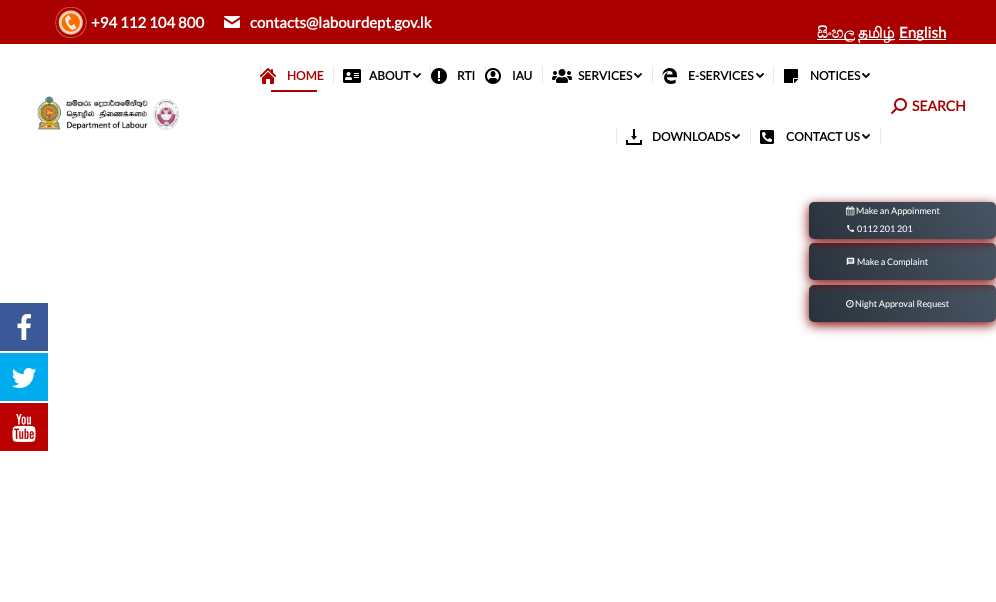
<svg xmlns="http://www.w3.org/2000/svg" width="996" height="602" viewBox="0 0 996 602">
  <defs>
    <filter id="blur1" x="-50%" y="-200%" width="200%" height="500%"><feGaussianBlur stdDeviation="6"/></filter>
    <linearGradient id="g1" gradientUnits="userSpaceOnUse" x1="824" y1="349" x2="981" y2="258"><stop offset="0" stop-color="#29323c"/><stop offset="1" stop-color="#485563"/></linearGradient>
    <linearGradient id="g2" gradientUnits="userSpaceOnUse" x1="824" y1="307" x2="981" y2="216"><stop offset="0" stop-color="#29323c"/><stop offset="1" stop-color="#485563"/></linearGradient>
    <linearGradient id="g3" gradientUnits="userSpaceOnUse" x1="824" y1="266" x2="981" y2="175"><stop offset="0" stop-color="#29323c"/><stop offset="1" stop-color="#485563"/></linearGradient>
  </defs>
  <rect width="100%" height="100%" fill="#ffffff"/>
  <rect x="0" y="0" width="996" height="44" fill="#aa0000"/>
  <image x="55" y="7" width="32" height="31" href="img1.png"/>
  <text x="91" y="28" font-family="Lato" font-size="15" font-weight="bold" fill="#ffffff">+94 112 104 800</text>
  <image x="224" y="16" width="16" height="12" href="img2.png"/>
  <text x="250" y="28" font-family="Lato" font-size="15" font-weight="bold" fill="#ffffff">contacts@labourdept.gov.lk</text>
  <rect x="817" y="39" width="38" height="1" fill="#ffffff"/>
  <text x="817" y="38" font-family="FreeSerif" font-size="15" font-weight="bold" fill="#ffffff">සිංහල</text>
  <rect x="858" y="39" width="37" height="1" fill="#ffffff"/>
  <text x="858" y="38" font-family="Lohit Tamil" font-size="15" font-weight="bold" fill="#ffffff">தமிழ்</text>
  <rect x="899" y="39" width="47" height="1" fill="#ffffff"/>
  <text x="899" y="38" font-family="Lato" font-size="15" font-weight="bold" fill="#ffffff">English</text>
  <image x="37" y="96" width="143" height="34" href="img3.png"/>
  <rect x="260" y="66" width="1" height="18" fill="#f6e3e3"/>
  <image x="260" y="68" width="16" height="16" href="img4.png"/>
  <text x="287" y="80" font-family="Lato" font-size="12" font-weight="bold" fill="#aa0000">HOME</text>
  <rect x="271" y="90" width="46" height="2" fill="#aa0000"/>
  <rect x="333" y="66" width="1" height="18" fill="#f6e3e3"/>
  <image x="343" y="69" width="18" height="14" href="img5.png"/>
  <text x="369" y="80" font-family="Lato" font-size="12" font-weight="bold" fill="#000000">ABOUT</text>
  <image x="413" y="73" width="8" height="5" href="img6.png"/>
  <rect x="430" y="66" width="1" height="18" fill="#f6e3e3"/>
  <image x="431" y="68" width="16" height="16" href="img7.png"/>
  <text x="457" y="80" font-family="Lato" font-size="12" font-weight="bold" fill="#000000">RTI</text>
  <rect x="485" y="66" width="1" height="18" fill="#f6e3e3"/>
  <image x="485" y="68" width="16" height="16" href="img8.png"/>
  <text x="512" y="80" font-family="Lato" font-size="12" font-weight="bold" fill="#000000">IAU</text>
  <rect x="542" y="66" width="1" height="18" fill="#f6e3e3"/>
  <image x="552" y="69" width="20" height="14" href="img9.png"/>
  <text x="578" y="80" font-family="Lato" font-size="12" font-weight="bold" fill="#000000">SERVICES</text>
  <image x="634" y="73" width="8" height="5" href="img6.png"/>
  <rect x="652" y="66" width="1" height="18" fill="#f6e3e3"/>
  <image x="662" y="68" width="15" height="16" href="img10.png"/>
  <text x="688" y="80" font-family="Lato" font-size="12" font-weight="bold" fill="#000000">E-SERVICES</text>
  <image x="756" y="73" width="8" height="5" href="img6.png"/>
  <rect x="773" y="66" width="1" height="18" fill="#f6e3e3"/>
  <image x="784" y="69" width="14" height="14" href="img11.png"/>
  <text x="810" y="80" font-family="Lato" font-size="12" font-weight="bold" fill="#000000">NOTICES</text>
  <image x="862" y="73" width="8" height="5" href="img6.png"/>
  <rect x="616" y="127" width="1" height="18" fill="#f6e3e3"/>
  <image x="626" y="129" width="16" height="16" href="img12.png"/>
  <text x="652" y="141" font-family="Lato" font-size="12" font-weight="bold" fill="#000000">DOWNLOADS</text>
  <image x="732" y="134" width="8" height="5" href="img6.png"/>
  <rect x="750" y="127" width="1" height="18" fill="#f6e3e3"/>
  <image x="760" y="130" width="14" height="14" href="img13.png"/>
  <text x="786" y="141" font-family="Lato" font-size="12" font-weight="bold" fill="#000000">CONTACT US</text>
  <image x="862" y="134" width="8" height="5" href="img6.png"/>
  <rect x="880" y="127" width="1" height="18" fill="#f6e3e3"/>
  <image x="891" y="98" width="16" height="16" href="img14.png"/>
  <text x="912" y="111" font-family="Lato" font-size="14" font-weight="bold" fill="#aa0000">SEARCH</text>
  <rect x="809" y="288" width="187" height="37" rx="5" fill="#800000" filter="url(#blur1)"/>
  <rect x="809" y="285" width="187" height="37" rx="5" fill="url(#g1)"/>
  <image x="846" y="299" width="8" height="9" href="img18.png"/>
  <rect x="809" y="246" width="187" height="37" rx="5" fill="#800000" filter="url(#blur1)"/>
  <rect x="809" y="243" width="187" height="37" rx="5" fill="url(#g2)"/>
  <image x="846" y="257" width="9" height="9" href="img17.png"/>
  <rect x="809" y="205" width="187" height="37" rx="5" fill="#800000" filter="url(#blur1)"/>
  <rect x="809" y="202" width="187" height="37" rx="5" fill="url(#g3)"/>
  <image x="846" y="206" width="9" height="10" href="img15.png"/>
  <text x="856" y="214" font-family="Lato" font-size="9" fill="#ffffff">Make an Appoinment</text>
  <image x="847" y="225" width="7" height="7" href="img16.png"/>
  <text x="857" y="232" font-family="Lato" font-size="9" fill="#ffffff">0112 201 201</text>
  <text x="857" y="265" font-family="Lato" font-size="9" fill="#ffffff">Make a Complaint</text>
  <text x="855" y="307" font-family="Lato" font-size="9" fill="#ffffff">Night Approval Request</text>
  <rect x="0" y="303" width="48" height="48" fill="#3b5998"/>
  <image x="17" y="314" width="14" height="26" href="img19.png"/>
  <rect x="0" y="353" width="48" height="48" fill="#00aced"/>
  <image x="11" y="368" width="26" height="20" href="img20.png"/>
  <rect x="0" y="403" width="48" height="48" fill="#bb0000"/>
  <image x="12" y="414" width="24" height="28" href="img21.png"/>
</svg>
